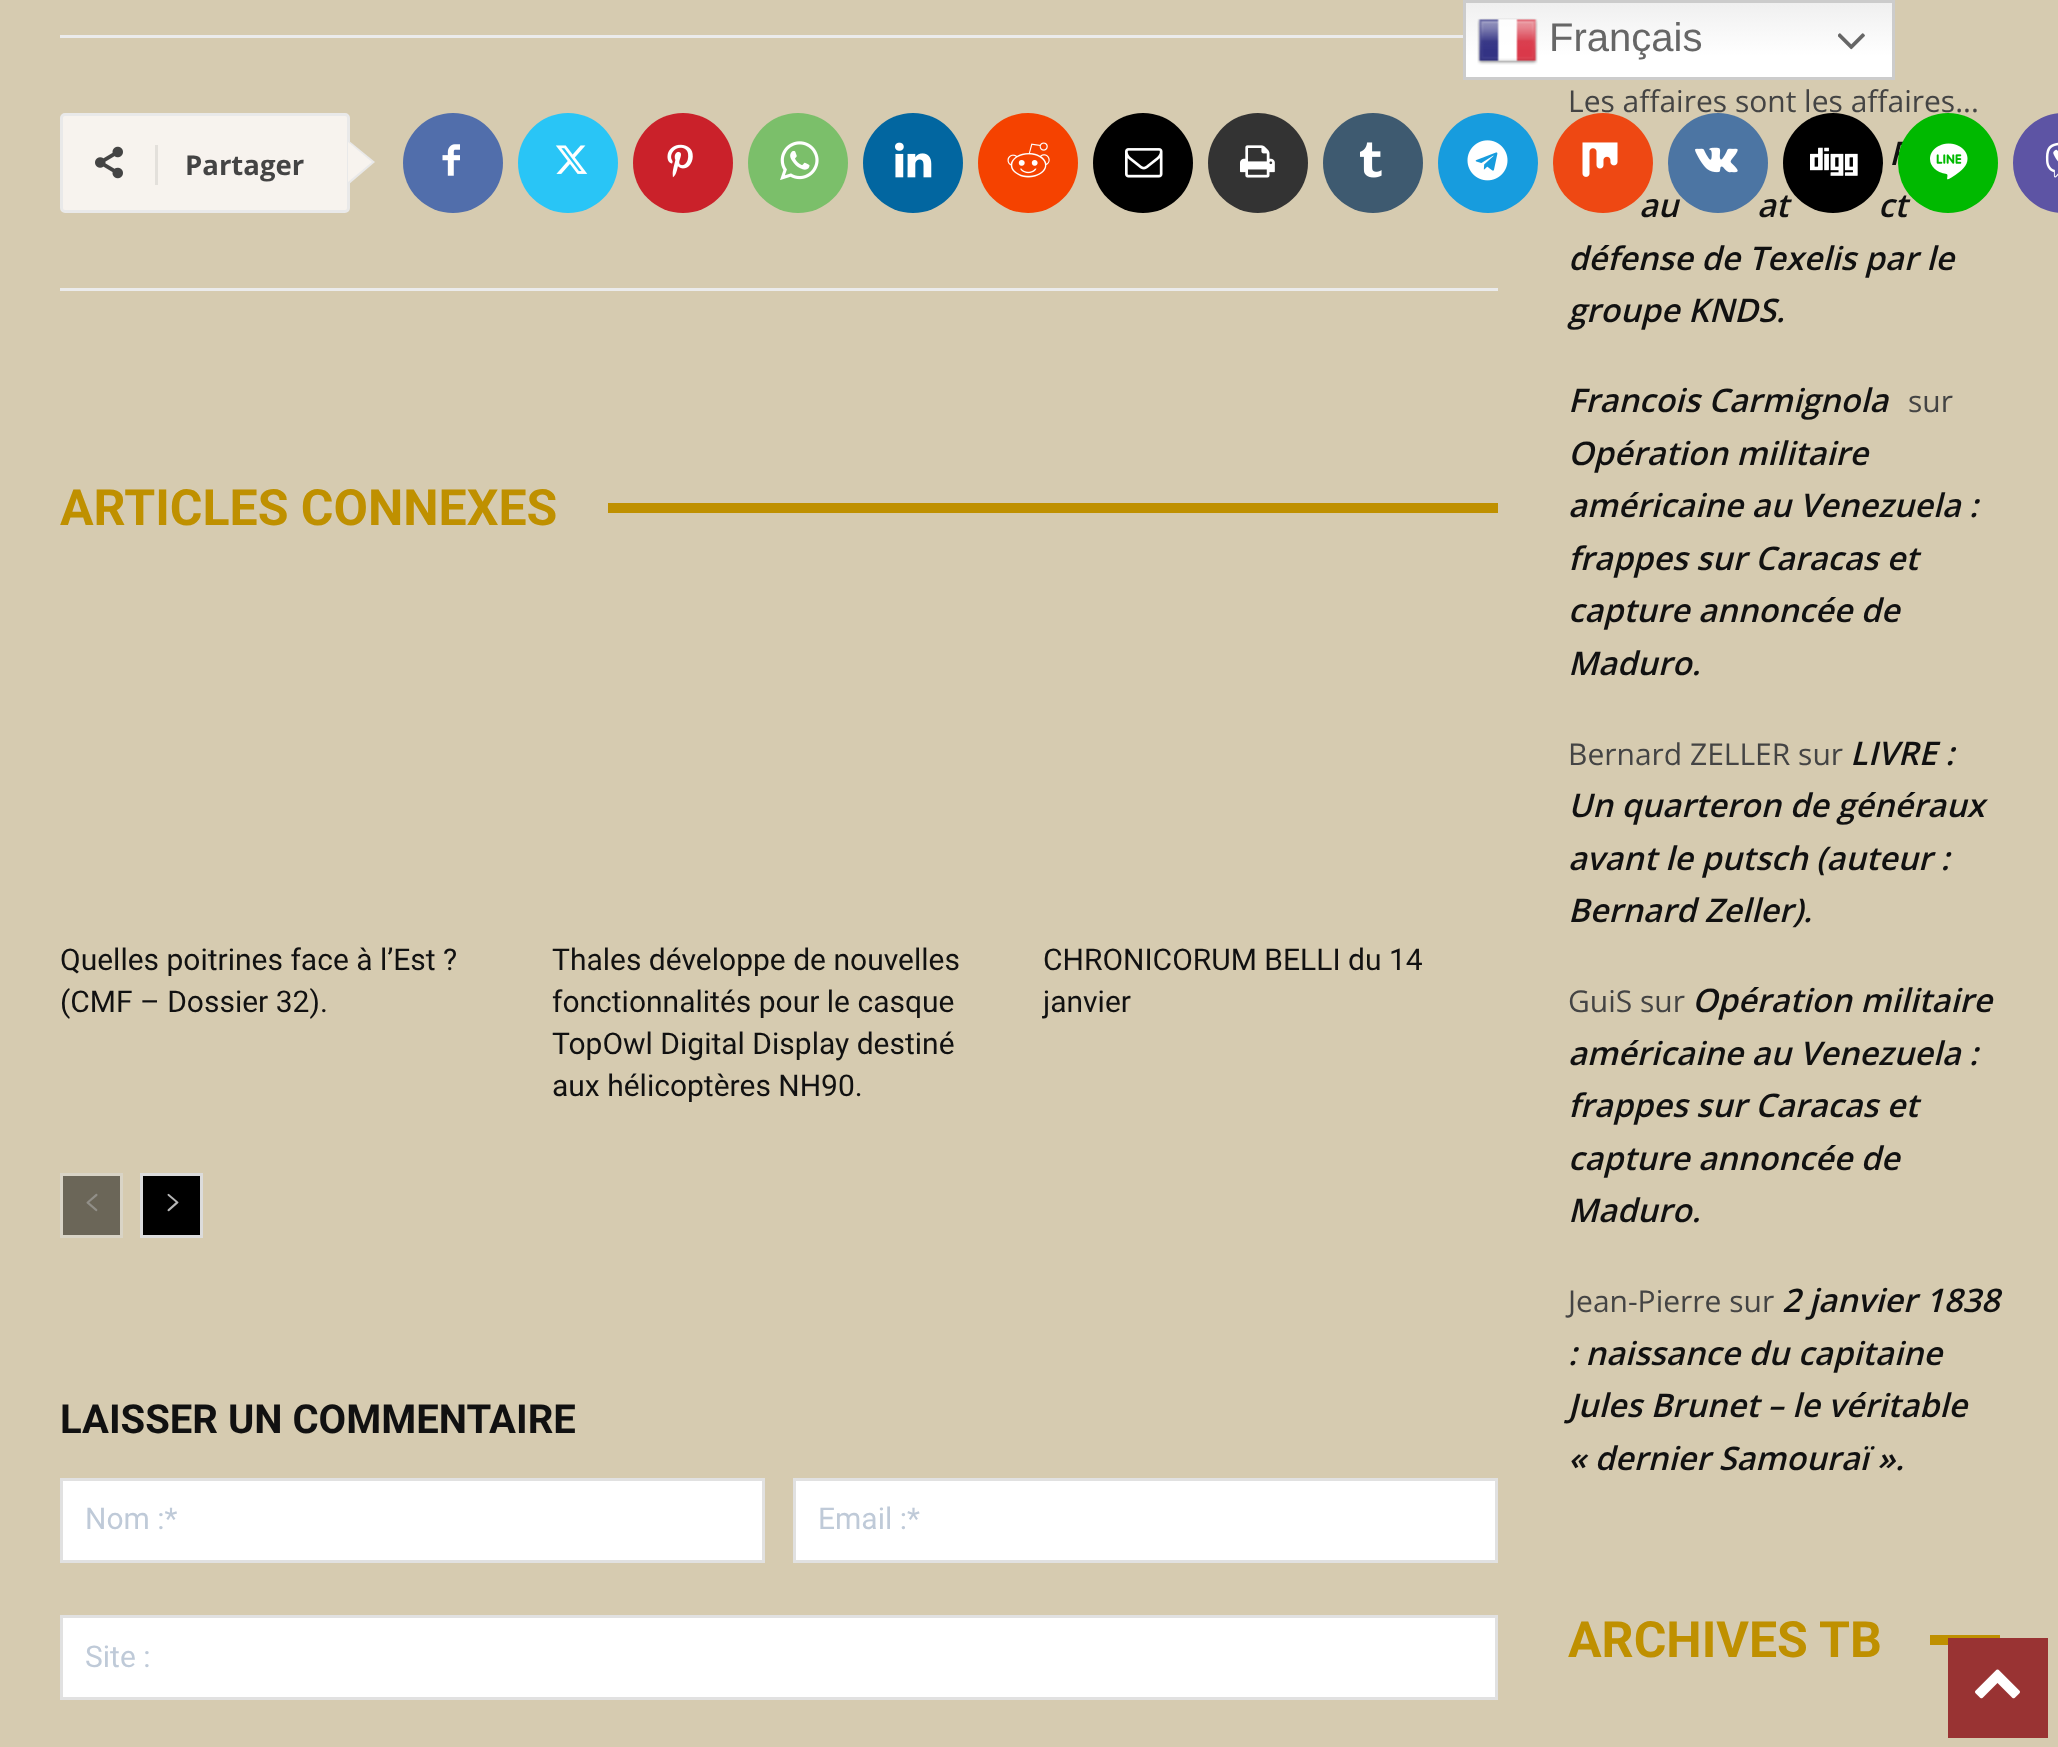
<svg xmlns="http://www.w3.org/2000/svg" width="2058" height="1747" viewBox="0 0 2058 1747">
  <defs>
    <linearGradient id="g1" gradientUnits="userSpaceOnUse" x1="1679" y1="0" x2="1679" y2="80"><stop offset="0" stop-color="#efefef"/><stop offset="0.7" stop-color="#ffffff"/></linearGradient>
  </defs>
  <rect width="100%" height="100%" fill="#d6cbb0"/>
  <rect x="1466" y="3" width="426" height="74" fill="url(#g1)"/>
  <rect x="1464.5" y="1.5" width="429" height="77" fill="none" stroke="#cccccc" stroke-width="3"/>
  <image x="1477" y="18" width="61" height="47" href="img1.png"/>
  <text x="1549" y="51" font-family="Liberation Sans" font-size="40" fill="#666666">Français</text>
  <image x="1838" y="33" width="27" height="17" href="img2.png"/>
  <rect x="60" y="35" width="1403" height="3" fill="#ebebeb"/>
  <rect x="61.5" y="114.5" width="287" height="97" rx="3.5" fill="#f7f3ee" stroke="#e9e9e9" stroke-width="3"/>
  <path d="M348 185V140L375 162Z" fill="#e9e9e9"/>
  <image x="95" y="146" width="28" height="33" href="img3.png"/>
  <rect x="155" y="145" width="3" height="40" fill="#e3e0db"/>
  <text x="185" y="175" font-family="Open Sans" font-size="27.5" font-weight="bold" fill="#444444">Partager</text>
  <path d="M348 182V142L372 162Z" fill="#f7f3ee"/>
  <circle cx="453" cy="163" r="50" fill="#516eab"/>
  <image x="442" y="144" width="18" height="32" href="img4.png"/>
  <circle cx="568" cy="163" r="50" fill="#29c5f6"/>
  <image x="555" y="145" width="33" height="29" href="img5.png"/>
  <circle cx="683" cy="163" r="50" fill="#ca212a"/>
  <image x="667" y="144" width="26" height="34" href="img6.png"/>
  <circle cx="798" cy="163" r="50" fill="#7bbf6a"/>
  <image x="780" y="141" width="39" height="39" href="img7.png"/>
  <circle cx="913" cy="163" r="50" fill="#0266a0"/>
  <image x="895" y="142" width="37" height="36" href="img8.png"/>
  <circle cx="1028" cy="163" r="50" fill="#f54200"/>
  <image x="1007" y="142" width="43" height="36" href="img9.png"/>
  <circle cx="1143" cy="163" r="50" fill="#000000"/>
  <image x="1125" y="148" width="38" height="30" href="img10.png"/>
  <circle cx="1258" cy="163" r="50" fill="#333333"/>
  <image x="1240" y="145" width="35" height="33" href="img11.png"/>
  <circle cx="1373" cy="163" r="50" fill="#3e5a70"/>
  <image x="1360" y="142" width="22" height="36" href="img12.png"/>
  <circle cx="1488" cy="163" r="50" fill="#179cde"/>
  <image x="1467" y="140" width="41" height="41" href="img13.png"/>
  <text x="1639" y="217" font-family="Open Sans" font-size="32.5" font-weight="600" font-style="italic" fill="#111111">au</text>
  <circle cx="1603" cy="163" r="50" fill="#ee4813"/>
  <image x="1582" y="142" width="36" height="35" href="img14.png"/>
  <text x="1757" y="217" font-family="Open Sans" font-size="32.5" font-weight="600" font-style="italic" fill="#111111">at</text>
  <circle cx="1718" cy="163" r="50" fill="#4c75a3"/>
  <image x="1695" y="147" width="43" height="26" href="img15.png"/>
  <text x="1878" y="217" font-family="Open Sans" font-size="32.5" font-weight="600" font-style="italic" fill="#111111">ct</text>
  <circle cx="1833" cy="163" r="50" fill="#000000"/>
  <image x="1810" y="147" width="48" height="29" href="img16.png"/>
  <text x="1889" y="165" font-family="Open Sans" font-size="32.5" font-weight="600" font-style="italic" fill="#111111">F</text>
  <circle cx="1948" cy="163" r="50" fill="#00b900"/>
  <image x="1930" y="143" width="38" height="37" href="img17.png"/>
  <path d="M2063 113H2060V213H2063C2035.5 213 2013 190.5 2013 163C2013 135.5 2035.5 113 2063 113Z" fill="#5d54a4"/>
  <image x="2045" y="142" width="13" height="36" href="img18.png"/>
  <rect x="60" y="288" width="1438" height="3" fill="#ebebeb"/>
  <text x="60" y="525" font-family="Roboto" font-size="50" font-weight="bold" fill="#bf9000">ARTICLES CONNEXES</text>
  <rect x="608" y="503" width="890" height="10" fill="#bf9000"/>
  <text x="60" y="970" font-family="Roboto" font-size="30" fill="#111111">Quelles poitrines face à l’Est ?</text>
  <text x="60" y="1012" font-family="Roboto" font-size="30" fill="#111111">(CMF – Dossier 32).</text>
  <text x="552" y="970" font-family="Roboto" font-size="30" fill="#111111">Thales développe de nouvelles</text>
  <text x="552" y="1012" font-family="Roboto" font-size="30" fill="#111111">fonctionnalités pour le casque</text>
  <text x="552" y="1054" font-family="Roboto" font-size="30" fill="#111111">TopOwl Digital Display destiné</text>
  <text x="552" y="1096" font-family="Roboto" font-size="30" fill="#111111">aux hélicoptères NH90.</text>
  <text x="1043" y="970" font-family="Roboto" font-size="30" fill="#111111">CHRONICORUM BELLI du 14</text>
  <text x="1043" y="1012" font-family="Roboto" font-size="30" fill="#111111">janvier</text>
  <rect x="61.5" y="1174.5" width="60" height="62" fill="#6b6658" stroke="#d9d4c6" stroke-width="3"/>
  <image x="86" y="1193" width="12" height="19" href="img19.png"/>
  <rect x="141.5" y="1174.5" width="60" height="62" fill="#000000" stroke="#dcdcdc" stroke-width="3"/>
  <image x="167" y="1193" width="12" height="19" href="img20.png"/>
  <text x="60" y="1433" font-family="Roboto" font-size="40" font-weight="bold" fill="#111111">LAISSER UN COMMENTAIRE</text>
  <rect x="61.5" y="1479.5" width="702" height="82" fill="#ffffff" stroke="#e1e1e1" stroke-width="3"/>
  <text x="85" y="1529" font-family="Roboto" font-size="30" fill="#bfcad8">Nom :*</text>
  <rect x="794.5" y="1479.5" width="702" height="82" fill="#ffffff" stroke="#e1e1e1" stroke-width="3"/>
  <text x="818" y="1529" font-family="Roboto" font-size="30" fill="#bfcad8">Email :*</text>
  <rect x="61.5" y="1616.5" width="1435" height="82" fill="#ffffff" stroke="#e1e1e1" stroke-width="3"/>
  <text x="85" y="1667" font-family="Roboto" font-size="30" fill="#bfcad8">Site :</text>
  <text x="1568" y="112" font-family="Open Sans" font-size="30" fill="#444444">Les affaires sont les affaires...</text>
  <text x="1568" y="270" font-family="Open Sans" font-size="32.5" font-weight="600" font-style="italic" fill="#111111">défense de Texelis par le</text>
  <text x="1568" y="322" font-family="Open Sans" font-size="32.5" font-weight="600" font-style="italic" fill="#111111">groupe KNDS.</text>
  <text x="1568" y="412" font-family="Open Sans" font-size="32.5" font-weight="600" font-style="italic" fill="#111111">Francois Carmignola</text>
  <text x="1908" y="412" font-family="Open Sans" font-size="30" fill="#444444">sur</text>
  <text x="1568" y="465" font-family="Open Sans" font-size="32.5" font-weight="600" font-style="italic" fill="#111111">Opération militaire</text>
  <text x="1568" y="517" font-family="Open Sans" font-size="32.5" font-weight="600" font-style="italic" fill="#111111">américaine au Venezuela :</text>
  <text x="1568" y="570" font-family="Open Sans" font-size="32.5" font-weight="600" font-style="italic" fill="#111111">frappes sur Caracas et</text>
  <text x="1568" y="622" font-family="Open Sans" font-size="32.5" font-weight="600" font-style="italic" fill="#111111">capture annoncée de</text>
  <text x="1568" y="675" font-family="Open Sans" font-size="32.5" font-weight="600" font-style="italic" fill="#111111">Maduro.</text>
  <text x="1568" y="765" font-family="Open Sans" font-size="30" fill="#444444">Bernard ZELLER sur</text>
  <text x="1850" y="765" font-family="Open Sans" font-size="32.5" font-weight="600" font-style="italic" fill="#111111">LIVRE :</text>
  <text x="1568" y="817" font-family="Open Sans" font-size="32.5" font-weight="600" font-style="italic" fill="#111111">Un quarteron de généraux</text>
  <text x="1568" y="870" font-family="Open Sans" font-size="32.5" font-weight="600" font-style="italic" fill="#111111">avant le putsch (auteur :</text>
  <text x="1568" y="922" font-family="Open Sans" font-size="32.5" font-weight="600" font-style="italic" fill="#111111">Bernard Zeller).</text>
  <text x="1568" y="1012" font-family="Open Sans" font-size="30" fill="#444444">GuiS sur</text>
  <text x="1692" y="1012" font-family="Open Sans" font-size="32.5" font-weight="600" font-style="italic" fill="#111111">Opération militaire</text>
  <text x="1568" y="1065" font-family="Open Sans" font-size="32.5" font-weight="600" font-style="italic" fill="#111111">américaine au Venezuela :</text>
  <text x="1568" y="1117" font-family="Open Sans" font-size="32.5" font-weight="600" font-style="italic" fill="#111111">frappes sur Caracas et</text>
  <text x="1568" y="1170" font-family="Open Sans" font-size="32.5" font-weight="600" font-style="italic" fill="#111111">capture annoncée de</text>
  <text x="1568" y="1222" font-family="Open Sans" font-size="32.5" font-weight="600" font-style="italic" fill="#111111">Maduro.</text>
  <text x="1568" y="1312" font-family="Open Sans" font-size="30" fill="#444444">Jean-Pierre sur</text>
  <text x="1782" y="1312" font-family="Open Sans" font-size="32.5" font-weight="600" font-style="italic" fill="#111111">2 janvier 1838</text>
  <text x="1568" y="1365" font-family="Open Sans" font-size="32.5" font-weight="600" font-style="italic" fill="#111111">: naissance du capitaine</text>
  <text x="1568" y="1417" font-family="Open Sans" font-size="32.5" font-weight="600" font-style="italic" fill="#111111">Jules Brunet – le véritable</text>
  <text x="1568" y="1470" font-family="Open Sans" font-size="32.5" font-weight="600" font-style="italic" fill="#111111">« dernier Samouraï ».</text>
  <text x="1568" y="1657" font-family="Roboto" font-size="50" font-weight="bold" fill="#bf9000">ARCHIVES TB</text>
  <rect x="1930" y="1635" width="70" height="10" fill="#bf9000"/>
  <rect x="1948" y="1638" width="100" height="100" fill="#993333"/>
  <image x="1975" y="1669" width="45" height="30" href="img21.png"/>
</svg>
